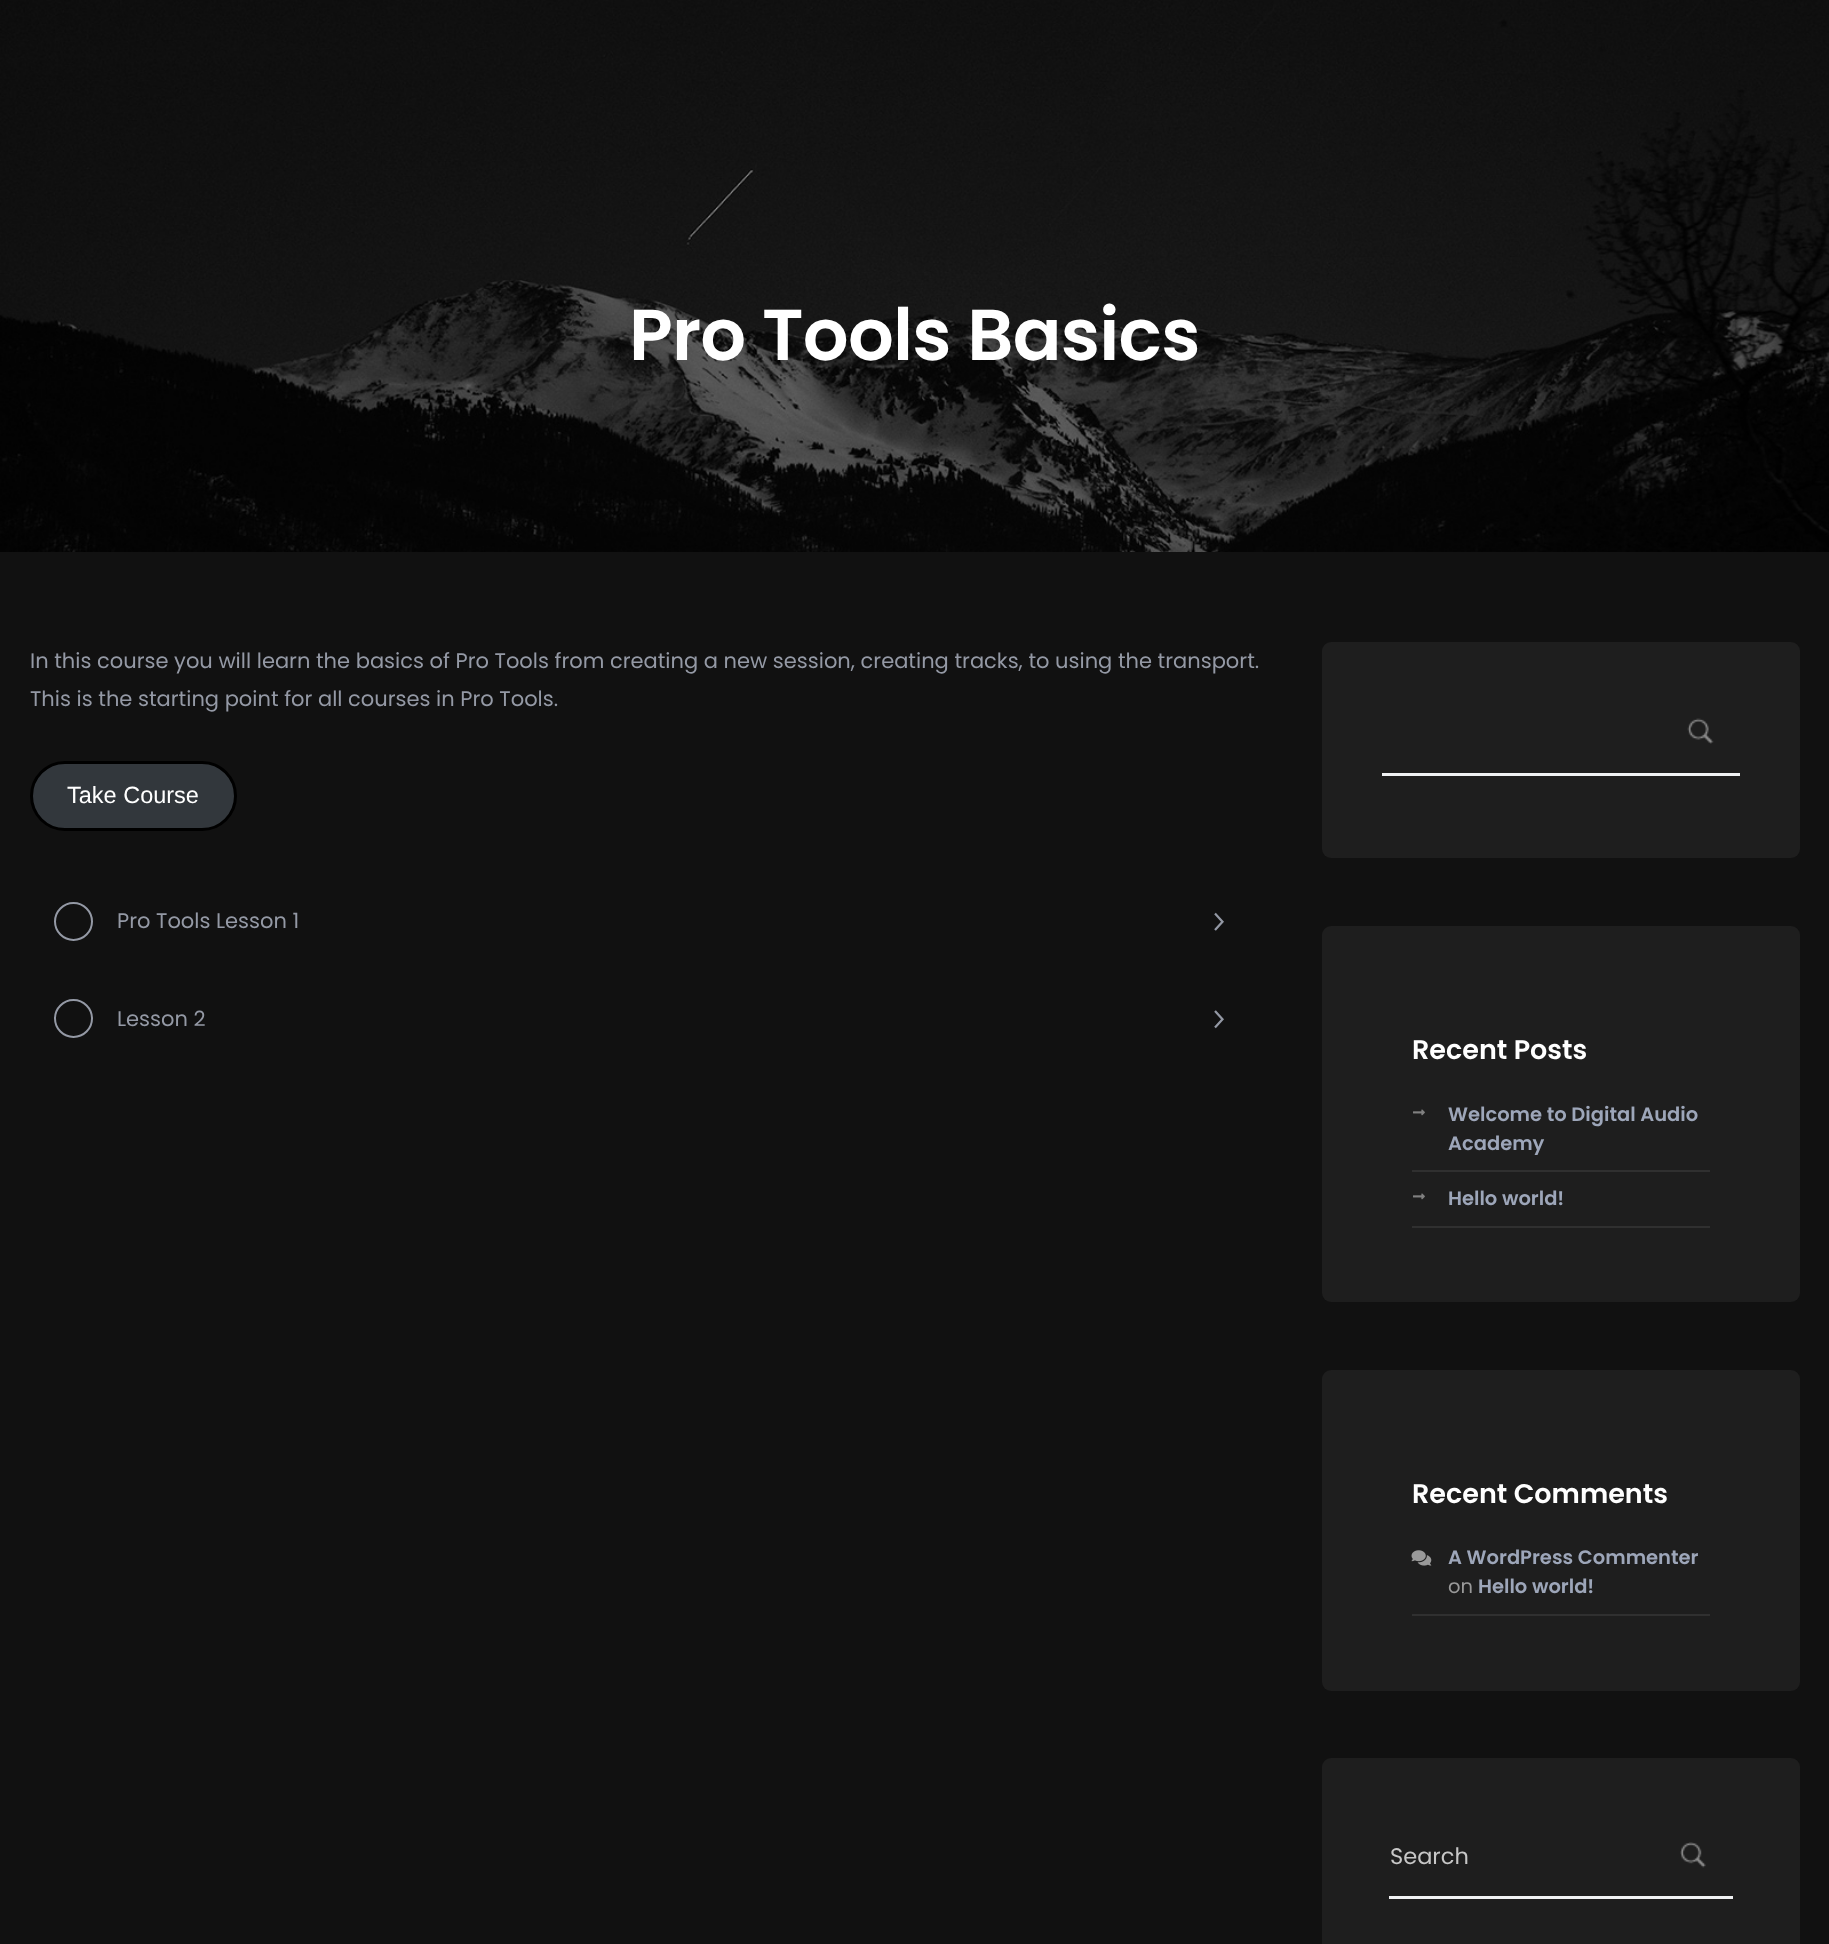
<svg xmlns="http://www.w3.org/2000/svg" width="1829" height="1944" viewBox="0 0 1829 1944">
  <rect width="100%" height="100%" fill="#111111"/>
  <image x="0" y="0" width="1829" height="552" href="img1.png"/>
  <text x="629" y="360" font-family="Poppins" font-size="72" font-weight="600" letter-spacing="-0.75" fill="#ffffff">Pro Tools Basics</text>
  <text x="30" y="668" font-family="Poppins" font-size="21" fill="#9499a5">In this course you will learn the basics of Pro Tools from creating a new session, creating tracks, to using the transport.</text>
  <text x="30" y="706" font-family="Poppins" font-size="21" fill="#9499a5">This is the starting point for all courses in Pro Tools.</text>
  <rect x="31.5" y="762.5" width="204" height="67" rx="33.5" fill="#32373c" stroke="#000000" stroke-width="3"/>
  <text x="67" y="803" font-family="Liberation Sans" font-size="23.5" fill="#ffffff">Take Course</text>
  <circle cx="73.5" cy="921.5" r="18.5" fill="none" stroke="#9499a5" stroke-width="2"/>
  <text x="117" y="928" font-family="Poppins" font-size="21" fill="#9499a5">Pro Tools Lesson 1</text>
  <image x="1214" y="912" width="10" height="19" href="img2.png"/>
  <circle cx="73.5" cy="1018.5" r="18.5" fill="none" stroke="#9499a5" stroke-width="2"/>
  <text x="117" y="1026" font-family="Poppins" font-size="21" fill="#9499a5">Lesson 2</text>
  <image x="1214" y="1010" width="10" height="19" href="img3.png"/>
  <rect x="1322" y="642" width="478" height="216" rx="9" fill="#1e1e1e"/>
  <image x="1687" y="718" width="27" height="26" href="img4.png"/>
  <rect x="1382" y="773" width="358" height="3" fill="#f0f1f3"/>
  <rect x="1322" y="926" width="478" height="376" rx="9" fill="#1e1e1e"/>
  <text x="1412" y="1059" font-family="Poppins" font-size="27" font-weight="600" fill="#ffffff">Recent Posts</text>
  <rect x="1412" y="1170" width="298" height="2" fill="#303030"/>
  <image x="1413" y="1109" width="12" height="7" href="img5.png"/>
  <text x="1448" y="1121" font-family="Poppins" font-size="19.5" font-weight="600" fill="#9da6b9">Welcome to Digital Audio</text>
  <text x="1448" y="1150" font-family="Poppins" font-size="19.5" font-weight="600" fill="#9da6b9">Academy</text>
  <rect x="1412" y="1226" width="298" height="2" fill="#303030"/>
  <image x="1413" y="1193" width="12" height="7" href="img5.png"/>
  <text x="1448" y="1205" font-family="Poppins" font-size="19.5" font-weight="600" fill="#9da6b9">Hello world!</text>
  <rect x="1322" y="1370" width="478" height="321" rx="9" fill="#1e1e1e"/>
  <text x="1412" y="1503" font-family="Poppins" font-size="27" font-weight="600" fill="#ffffff">Recent Comments</text>
  <rect x="1412" y="1614" width="298" height="2" fill="#303030"/>
  <image x="1411" y="1550" width="21" height="16" href="img6.png"/>
  <text x="1448" y="1564" font-family="Poppins" font-size="19.5" font-weight="600" fill="#9da6b9">A WordPress Commenter</text>
  <text x="1448" y="1593" font-family="Poppins" font-size="19.5" fill="#999999">on</text>
  <text x="1478" y="1593" font-family="Poppins" font-size="19.5" font-weight="600" fill="#9da6b9">Hello world!</text>
  <rect x="1322" y="1758" width="478" height="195" rx="9" fill="#1e1e1e"/>
  <image x="1680" y="1842" width="26" height="26" href="img7.png"/>
  <rect x="1389" y="1896" width="344" height="3" fill="#f0f1f3"/>
  <text x="1390" y="1864" font-family="Poppins" font-size="22.5" fill="#c7c7c7">Search</text>
</svg>
